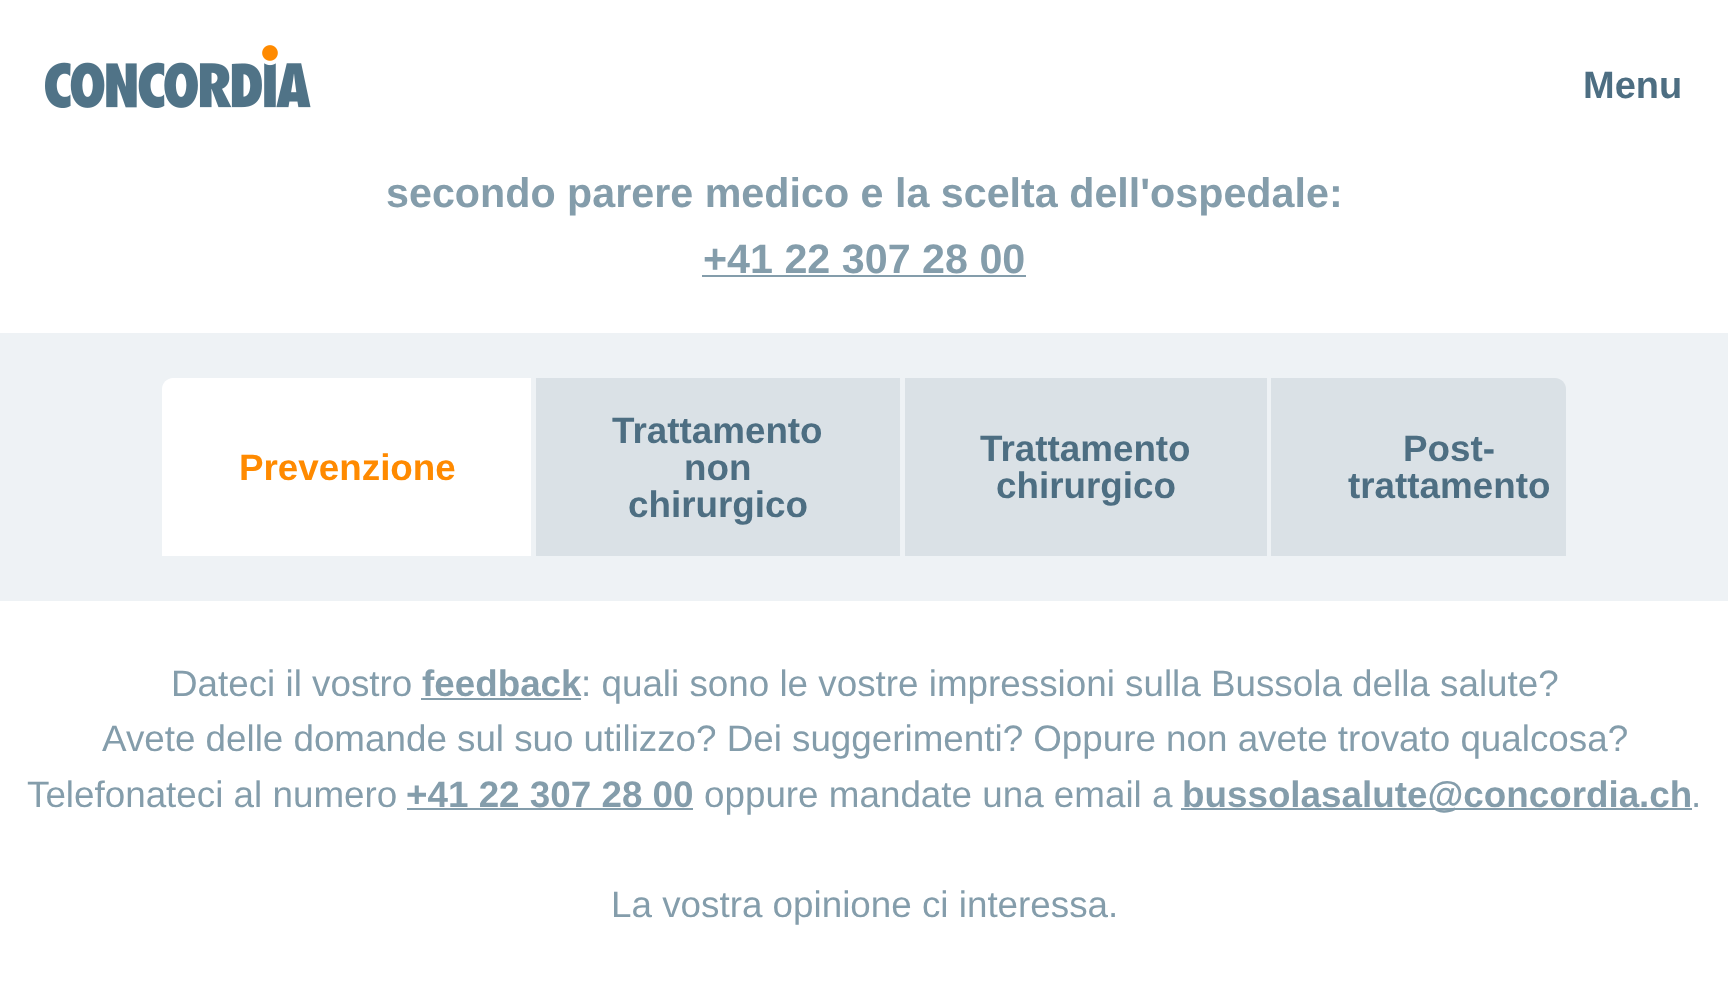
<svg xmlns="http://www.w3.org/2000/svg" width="1728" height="1005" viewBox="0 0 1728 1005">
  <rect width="100%" height="100%" fill="#ffffff"/>
  <image x="45" y="45" width="266" height="63" href="img1.png"/>
  <text x="1583" y="98" font-family="Liberation Sans" font-size="38" font-weight="bold" fill="#4d6e82">Menu</text>
  <text x="386" y="207" font-family="Liberation Sans" font-size="41.25" font-weight="bold" fill="#849dab">secondo parere medico e la scelta dell'ospedale:</text>
  <text x="703" y="273" font-family="Liberation Sans" font-size="41.25" font-weight="bold" fill="#849dab">+41 22 307 28 00</text>
  <rect x="702" y="275" width="324" height="2" fill="#849dab"/>
  <rect x="0" y="333" width="1728" height="268" fill="#eef2f5"/>
  <path d="M173 378H531V556H162V389C162 383 167 378 173 378Z" fill="#ffffff"/>
  <text x="239" y="480" font-family="Liberation Sans" font-size="36.8" font-weight="bold" fill="#ff8a00">Prevenzione</text>
  <rect x="536" y="378" width="364" height="178" fill="#dae1e6"/>
  <text x="612" y="443" font-family="Liberation Sans" font-size="36.8" font-weight="bold" fill="#4d6e82">Trattamento</text>
  <text x="684" y="480" font-family="Liberation Sans" font-size="36.8" font-weight="bold" fill="#4d6e82">non</text>
  <text x="628" y="517" font-family="Liberation Sans" font-size="36.8" font-weight="bold" fill="#4d6e82">chirurgico</text>
  <rect x="905" y="378" width="362" height="178" fill="#dae1e6"/>
  <text x="980" y="461" font-family="Liberation Sans" font-size="36.8" font-weight="bold" fill="#4d6e82">Trattamento</text>
  <text x="996" y="498" font-family="Liberation Sans" font-size="36.8" font-weight="bold" fill="#4d6e82">chirurgico</text>
  <path d="M1271 378H1555C1561 378 1566 383 1566 389V556H1271Z" fill="#dae1e6"/>
  <text x="1403" y="461" font-family="Liberation Sans" font-size="36.8" font-weight="bold" fill="#4d6e82">Post-</text>
  <text x="1348" y="498" font-family="Liberation Sans" font-size="36.8" font-weight="bold" fill="#4d6e82">trattamento</text>
  <text x="171" y="696" font-family="Liberation Sans" font-size="36.8" fill="#849dab">Dateci il vostro</text>
  <text x="422" y="696" font-family="Liberation Sans" font-size="36.8" font-weight="bold" fill="#849dab">feedback</text>
  <rect x="421" y="698" width="160" height="2" fill="#849dab"/>
  <text x="581" y="696" font-family="Liberation Sans" font-size="36.8" fill="#849dab">: quali sono le vostre impressioni sulla Bussola della salute?</text>
  <text x="102" y="751" word-spacing="-0.1" font-family="Liberation Sans" font-size="36.8" fill="#849dab">Avete delle domande sul suo utilizzo? Dei suggerimenti? Oppure non avete trovato qualcosa?</text>
  <text x="27" y="807" font-family="Liberation Sans" font-size="36.8" fill="#849dab">Telefonateci al numero</text>
  <text x="406" y="807" font-family="Liberation Sans" font-size="36.8" font-weight="bold" fill="#849dab">+41 22 307 28 00</text>
  <rect x="407" y="808" width="286" height="2" fill="#849dab"/>
  <text x="704" y="807" font-family="Liberation Sans" font-size="36.8" fill="#849dab">oppure mandate una email a</text>
  <rect x="1181" y="808" width="511" height="2" fill="#849dab"/>
  <text x="1182" y="807" font-family="Liberation Sans" font-size="36.8" font-weight="bold" fill="#849dab">bussolasalute@concordia.ch</text>
  <text x="1691" y="807" font-family="Liberation Sans" font-size="36.8" fill="#849dab">.</text>
  <text x="611" y="917" font-family="Liberation Sans" font-size="36.8" fill="#849dab">La vostra opinione ci interessa.</text>
</svg>
